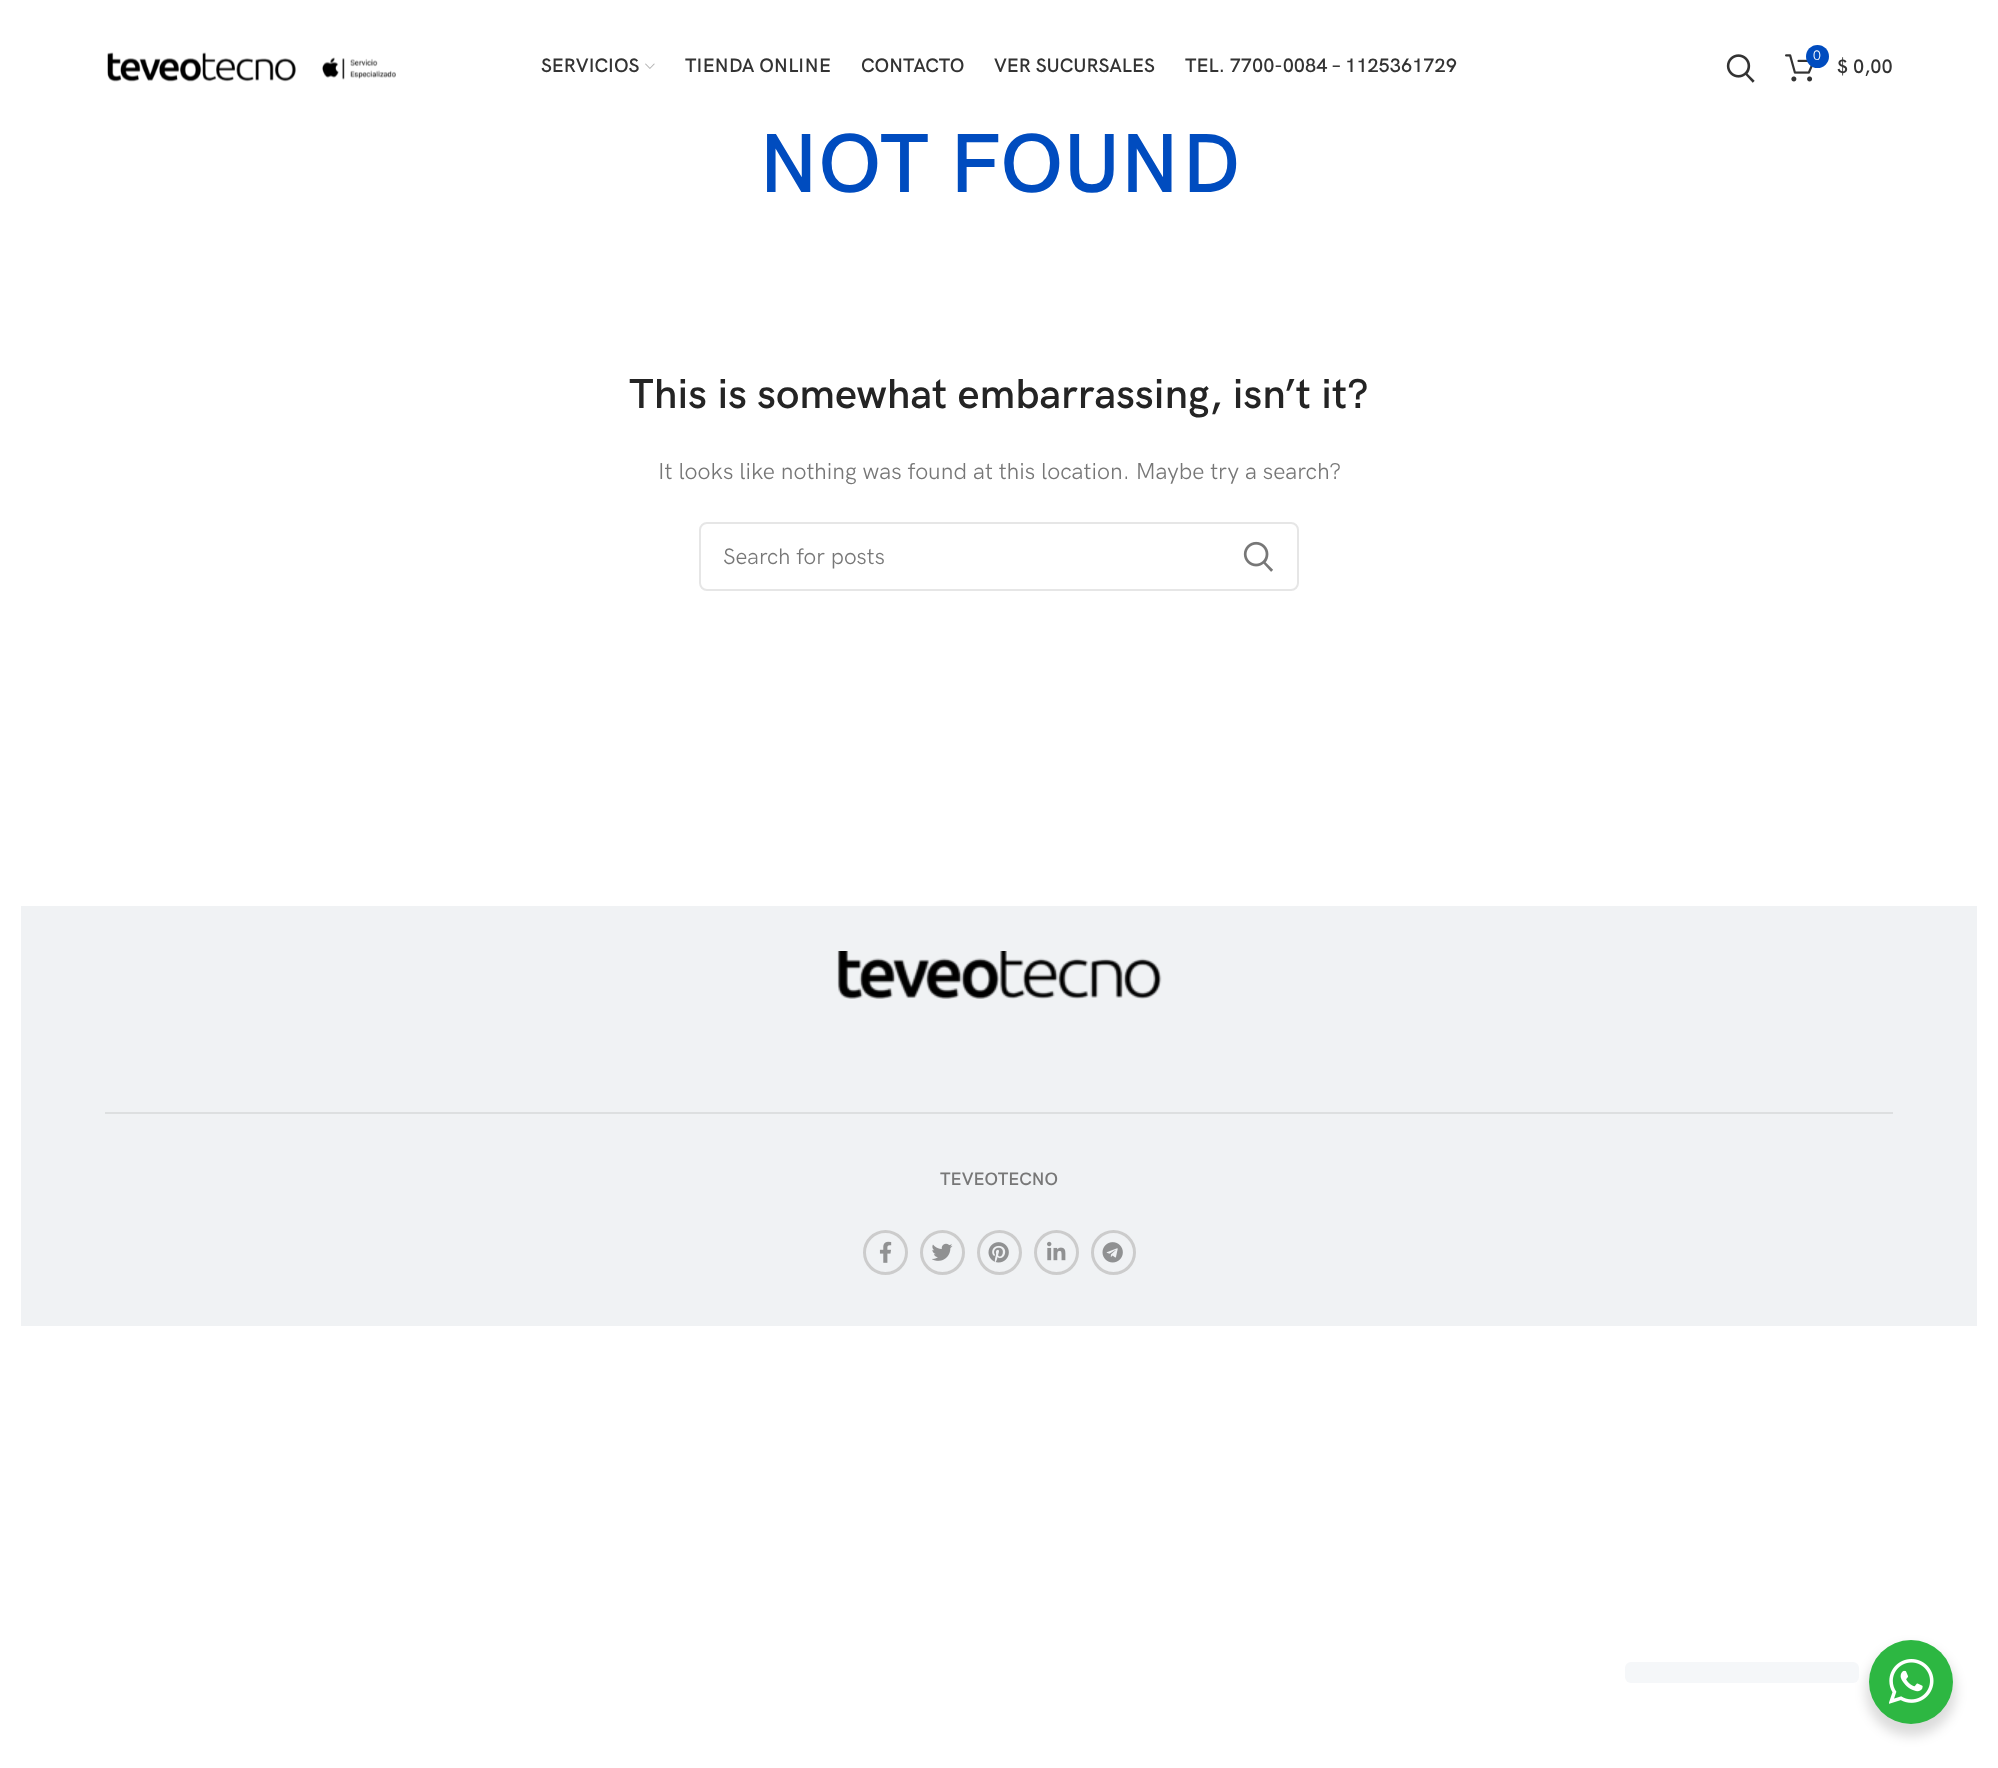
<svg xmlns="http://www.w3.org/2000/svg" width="1998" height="1768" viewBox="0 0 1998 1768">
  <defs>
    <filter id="blur1" x="-50%" y="-200%" width="200%" height="500%"><feGaussianBlur stdDeviation="6"/></filter>
  </defs>
  <rect width="100%" height="100%" fill="#ffffff"/>
  <image x="107" y="52" width="289" height="30" href="img1.png"/>
  <text x="541" y="72" font-family="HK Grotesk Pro" font-size="19.5" font-weight="600" fill="#333333">SERVICIOS</text>
  <image x="645" y="63" width="10" height="6" href="img2.png"/>
  <text x="685" y="72" font-family="HK Grotesk Pro" font-size="19.5" font-weight="600" fill="#333333">TIENDA ONLINE</text>
  <text x="861" y="72" font-family="HK Grotesk Pro" font-size="19.5" font-weight="600" fill="#333333">CONTACTO</text>
  <text x="994" y="72" font-family="HK Grotesk Pro" font-size="19.5" font-weight="600" fill="#333333">VER SUCURSALES</text>
  <text x="1185" y="72" font-family="HK Grotesk Pro" font-size="19.5" font-weight="600" fill="#333333">TEL. 7700-0084 – 1125361729</text>
  <image x="1726" y="54" width="29" height="29" href="img3.png"/>
  <image x="1785" y="54" width="28" height="28" href="img4.png"/>
  <circle cx="1817.5" cy="56.5" r="11.5" fill="#004cbf"/>
  <text x="1813" y="60" font-family="HK Grotesk Pro" font-size="14" fill="#ffffff">0</text>
  <text x="1837" y="73" font-family="HK Grotesk Pro" font-size="19.5" font-weight="600" fill="#333333">$</text>
  <text x="1853" y="73" font-family="HK Grotesk Pro" font-size="19.5" font-weight="600" fill="#333333">0,00</text>
  <text x="759" y="192" font-family="HK Grotesk Pro" font-size="84" font-weight="600" fill="#004cbf">NOT FOUND</text>
  <text x="629" y="408" font-family="HK Grotesk Pro" font-size="42" font-weight="600" fill="#242424">This is somewhat embarrassing, isn’t it?</text>
  <text x="658" y="479" font-family="HK Grotesk Pro" font-size="23.1" fill="#777777">It looks like nothing was found at this location. Maybe try a search?</text>
  <rect x="700" y="523" width="598" height="67" rx="7" fill="none" stroke="#e6e6e6" stroke-width="2"/>
  <text x="723" y="564" font-family="HK Grotesk Pro" font-size="22.5" fill="#777777">Search for posts</text>
  <image x="1243" y="541" width="30" height="31" href="img5.png"/>
  <rect x="21" y="906" width="1956" height="420" fill="#f0f2f4"/>
  <image x="837" y="951" width="325" height="48" href="img6.png"/>
  <rect x="105" y="1112" width="1788" height="2" fill="#dddfe0"/>
  <text x="940" y="1185" font-family="HK Grotesk Pro" font-size="18" font-weight="600" fill="#777777">TEVEOTECNO</text>
  <circle cx="885.5" cy="1252.5" r="21" fill="none" stroke="#cccccc" stroke-width="3"/>
  <image x="879" y="1241" width="13" height="22" href="img7.png"/>
  <circle cx="942.5" cy="1252.5" r="21" fill="none" stroke="#cccccc" stroke-width="3"/>
  <image x="932" y="1243" width="21" height="18" href="img8.png"/>
  <circle cx="999.5" cy="1252.5" r="21" fill="none" stroke="#cccccc" stroke-width="3"/>
  <image x="988" y="1242" width="21" height="21" href="img9.png"/>
  <circle cx="1056.5" cy="1252.5" r="21" fill="none" stroke="#cccccc" stroke-width="3"/>
  <image x="1047" y="1241" width="19" height="20" href="img10.png"/>
  <circle cx="1113.5" cy="1252.5" r="21" fill="none" stroke="#cccccc" stroke-width="3"/>
  <image x="1102" y="1242" width="21" height="21" href="img11.png"/>
  <rect x="1866" y="1646" width="90" height="90" rx="45" fill="#000000" fill-opacity="0.14" filter="url(#blur1)"/>
  <rect x="1625" y="1662" width="234" height="21" rx="6" fill="#f5f7f9"/>
  <circle cx="1911" cy="1682" r="42" fill="#2db742"/>
  <image x="1889" y="1659" width="45" height="45" href="img12.png"/>
</svg>
